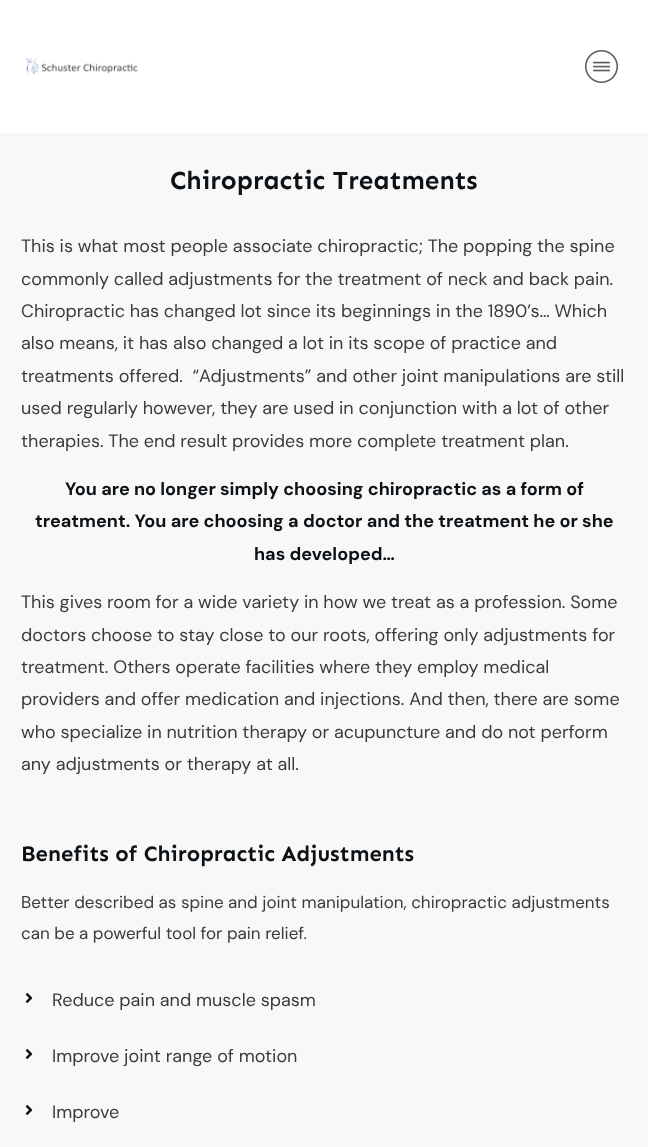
<svg xmlns="http://www.w3.org/2000/svg" width="648" height="1147" viewBox="0 0 648 1147">
  <rect width="100%" height="100%" fill="#ffffff"/>
  <image x="25" y="58" width="113" height="17" href="img1.png"/>
  <image x="585" y="50" width="33" height="33" href="img2.png"/>
  <rect x="0" y="133" width="648" height="1014" fill="#f8f8f8"/>
  <text x="170" y="189" font-family="Sen" font-size="26" font-weight="bold" fill="#0c1115">Chiropractic Treatments</text>
  <text x="21" y="252" font-family="DM Sans" font-size="18" fill="#3b3b3b">This is what most people associate chiropractic; The popping the spine</text>
  <text x="21" y="285" font-family="DM Sans" font-size="18" fill="#3b3b3b">commonly called adjustments for the treatment of neck and back pain.</text>
  <text x="21" y="317" font-family="DM Sans" font-size="18" fill="#3b3b3b">Chiropractic has changed lot since its beginnings in the 1890’s… Which</text>
  <text x="21" y="349" font-family="DM Sans" font-size="18" fill="#3b3b3b">also means, it has also changed a lot in its scope of practice and</text>
  <text x="21" y="382" font-family="DM Sans" font-size="18" fill="#3b3b3b" xml:space="preserve">treatments offered.  “Adjustments” and other joint manipulations are still</text>
  <text x="21" y="414" font-family="DM Sans" font-size="18" fill="#3b3b3b">used regularly however, they are used in conjunction with a lot of other</text>
  <text x="21" y="447" font-family="DM Sans" font-size="18" fill="#3b3b3b">therapies. The end result provides more complete treatment plan.</text>
  <text x="65" y="495" font-family="DM Sans" font-size="18" font-weight="bold" fill="#0c1115">You are no longer simply choosing chiropractic as a form of</text>
  <text x="35" y="527" font-family="DM Sans" font-size="18" font-weight="bold" fill="#0c1115">treatment. You are choosing a doctor and the treatment he or she</text>
  <text x="254" y="560" font-family="DM Sans" font-size="18" font-weight="bold" fill="#0c1115">has developed…</text>
  <text x="21" y="608" font-family="DM Sans" font-size="18" fill="#3b3b3b">This gives room for a wide variety in how we treat as a profession. Some</text>
  <text x="21" y="641" font-family="DM Sans" font-size="18" fill="#3b3b3b">doctors choose to stay close to our roots, offering only adjustments for</text>
  <text x="21" y="673" font-family="DM Sans" font-size="18" fill="#3b3b3b">treatment. Others operate facilities where they employ medical</text>
  <text x="21" y="705" font-family="DM Sans" font-size="18" fill="#3b3b3b">providers and offer medication and injections. And then, there are some</text>
  <text x="21" y="738" font-family="DM Sans" font-size="18" fill="#3b3b3b">who specialize in nutrition therapy or acupuncture and do not perform</text>
  <text x="21" y="770" font-family="DM Sans" font-size="18" fill="#3b3b3b">any adjustments or therapy at all.</text>
  <text x="21" y="861" font-family="Sen" font-size="22" font-weight="bold" fill="#0c1115">Benefits of Chiropractic Adjustments</text>
  <text x="21" y="908" font-family="DM Sans" font-size="17" fill="#3b3b3b">Better described as spine and joint manipulation, chiropractic adjustments</text>
  <text x="21" y="939" font-family="DM Sans" font-size="17" fill="#3b3b3b">can be a powerful tool for pain relief.</text>
  <image x="25" y="993" width="8" height="10" href="img3.png"/>
  <text x="52" y="1006" font-family="DM Sans" font-size="18" fill="#3b3b3b">Reduce pain and muscle spasm</text>
  <image x="25" y="1049" width="8" height="10" href="img3.png"/>
  <text x="52" y="1062" font-family="DM Sans" font-size="18" fill="#3b3b3b">Improve joint range of motion</text>
  <image x="25" y="1105" width="8" height="10" href="img3.png"/>
  <text x="52" y="1118" font-family="DM Sans" font-size="18" fill="#3b3b3b">Improve</text>
</svg>
